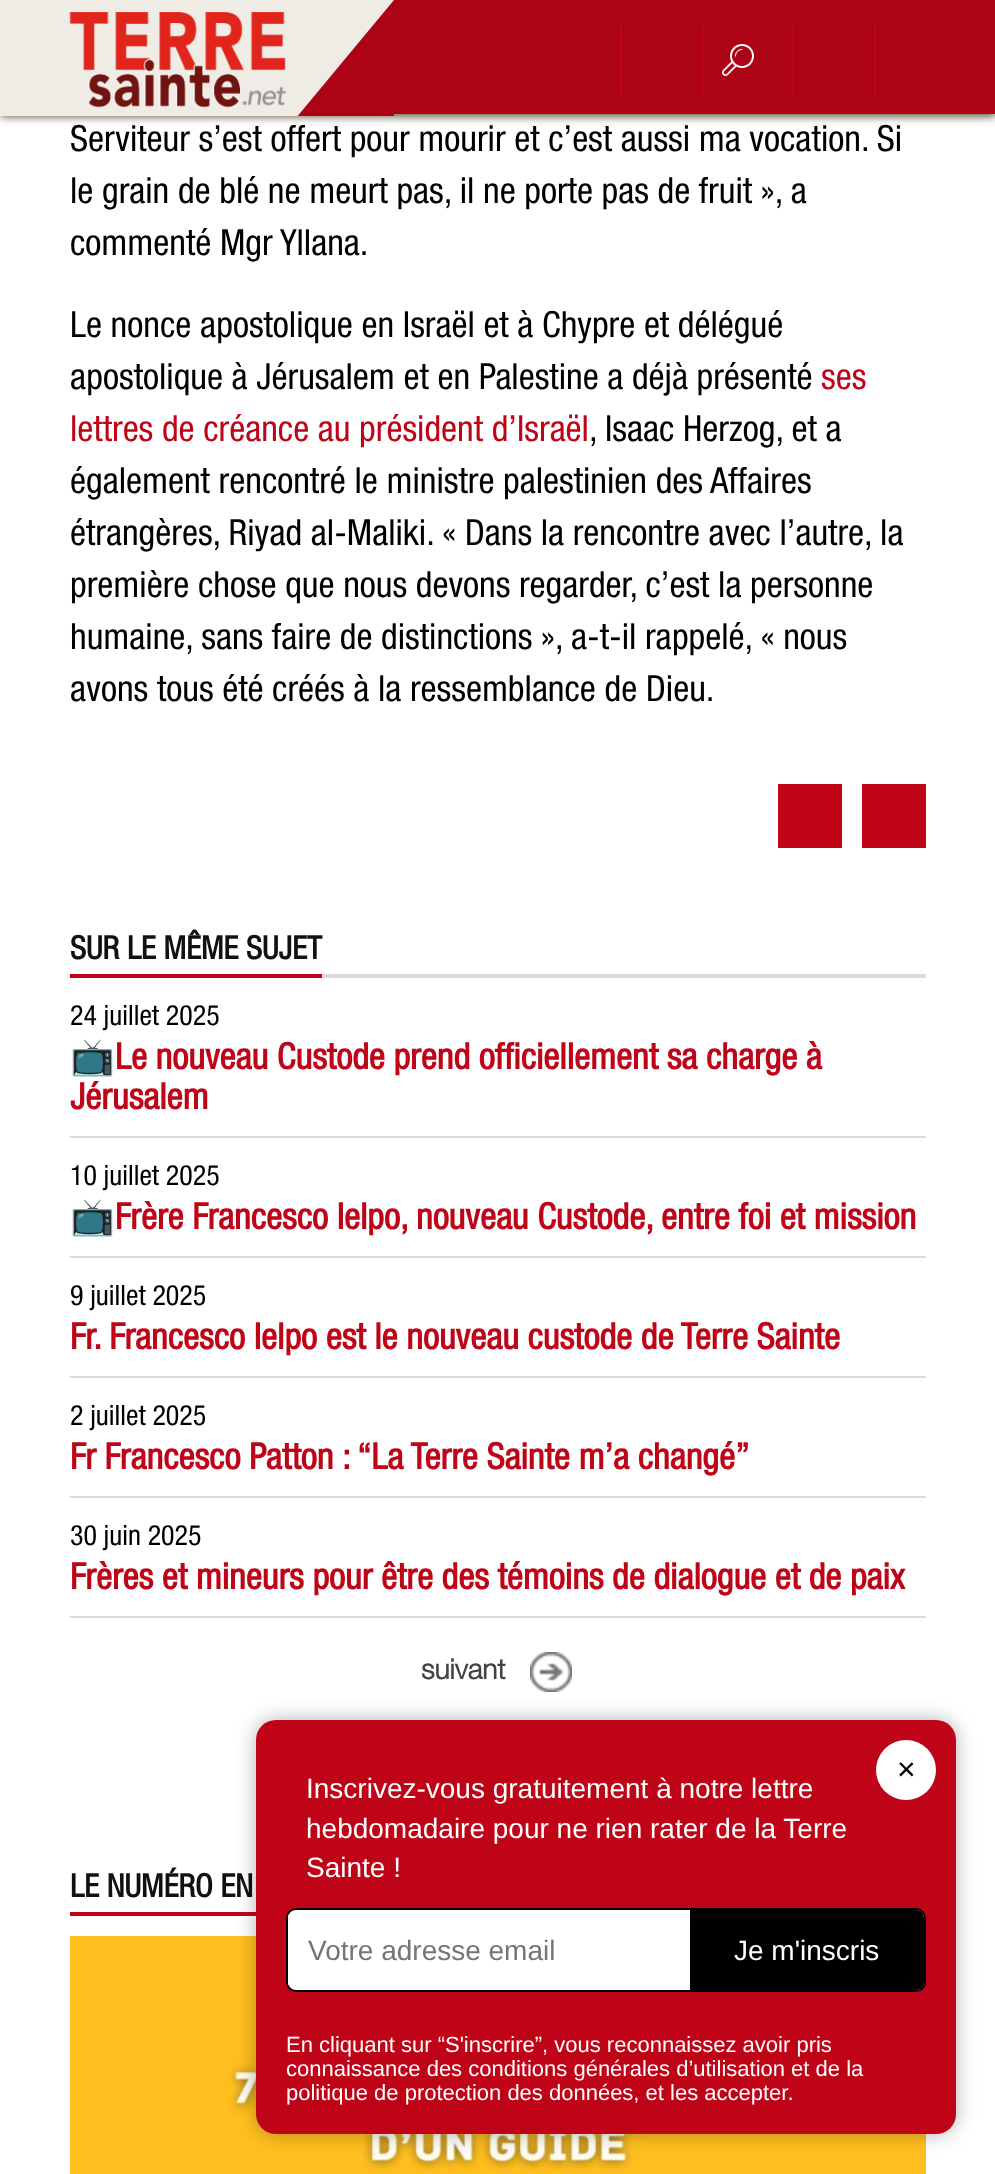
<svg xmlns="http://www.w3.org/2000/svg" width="995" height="2174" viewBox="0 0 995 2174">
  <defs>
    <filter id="blur1" x="-50%" y="-200%" width="200%" height="500%"><feGaussianBlur stdDeviation="5"/></filter>
    <clipPath id="clip1"><rect x="0" y="0" width="394" height="116"/></clipPath>
    <filter id="blur2" x="-50%" y="-200%" width="200%" height="500%"><feGaussianBlur stdDeviation="10"/></filter>
    <clipPath id="clip2"><rect x="288" y="1910" width="636" height="80" rx="8"/></clipPath>
  </defs>
  <rect width="100%" height="100%" fill="#ffffff"/>
  <rect x="0" y="0" width="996" height="116" fill="#513f25" filter="url(#blur1)"/>
  <rect x="0" y="0" width="394" height="116" fill="#efece5"/>
  <image x="69" y="12" width="217" height="96" href="img1.png"/>
  <g clip-path="url(#clip1)">
    <path d="M394 118H296L394 0Z" fill="#ac0414"/>
  </g>
  <rect x="394" y="0" width="601" height="114" fill="#ac0414"/>
  <rect x="620" y="24" width="2" height="72" fill="#bf0417"/>
  <rect x="702" y="24" width="2" height="72" fill="#bf0417"/>
  <image x="722" y="44" width="32" height="32" href="img2.png"/>
  <rect x="792" y="24" width="2" height="72" fill="#bf0417"/>
  <rect x="874" y="24" width="2" height="72" fill="#bf0417"/>
  <text x="70" y="151" font-family="Helvetica Neue" font-size="36" font-weight="500" fill="#000000">Serviteur s’est offert pour mourir et c’est aussi ma vocation. Si</text>
  <text x="70" y="203" font-family="Helvetica Neue" font-size="36" font-weight="500" fill="#000000">le grain de blé ne meurt pas, il ne porte pas de fruit », a</text>
  <text x="70" y="255" font-family="Helvetica Neue" font-size="36" font-weight="500" fill="#000000">commenté Mgr Yllana.</text>
  <text x="70" y="337" font-family="Helvetica Neue" font-size="36" font-weight="500" fill="#000000">Le nonce apostolique en Israël et à Chypre et délégué</text>
  <text x="70" y="389" font-family="Helvetica Neue" font-size="36" font-weight="500" fill="#000000">apostolique à Jérusalem et en Palestine a déjà présenté</text>
  <text x="821" y="389" font-family="Helvetica Neue" font-size="36" font-weight="500" fill="#bf0417">ses</text>
  <text x="70" y="441" font-family="Helvetica Neue" font-size="36" font-weight="500" fill="#bf0417">lettres de créance au président d’Israël</text>
  <text x="589" y="441" font-family="Helvetica Neue" font-size="36" font-weight="500" fill="#000000">, Isaac Herzog, et a</text>
  <text x="70" y="493" font-family="Helvetica Neue" font-size="36" font-weight="500" fill="#000000">également rencontré le ministre palestinien des Affaires</text>
  <text x="70" y="545" font-family="Helvetica Neue" font-size="36" font-weight="500" fill="#000000">étrangères, Riyad al-Maliki. « Dans la rencontre avec l’autre, la</text>
  <text x="70" y="597" font-family="Helvetica Neue" font-size="36" font-weight="500" fill="#000000">première chose que nous devons regarder, c’est la personne</text>
  <text x="70" y="649" font-family="Helvetica Neue" font-size="36" font-weight="500" fill="#000000">humaine, sans faire de distinctions », a-t-il rappelé, « nous</text>
  <text x="70" y="701" font-family="Helvetica Neue" font-size="36" font-weight="500" fill="#000000">avons tous été créés à la ressemblance de Dieu.</text>
  <rect x="778" y="784" width="64" height="64" fill="#bf0417"/>
  <rect x="862" y="784" width="64" height="64" fill="#bf0417"/>
  <rect x="322" y="974" width="604" height="4" fill="#dadada"/>
  <rect x="70" y="974" width="252" height="4" fill="#bf0417"/>
  <text x="70" y="959" font-family="Helvetica Neue" font-size="32" font-weight="bold" fill="#111111">SUR LE MÊME SUJET</text>
  <rect x="70" y="1136" width="856" height="2" fill="#dadada"/>
  <text x="70" y="1025" font-family="Helvetica Neue" font-size="28" font-weight="500" fill="#000000">24 juillet 2025</text>
  <text x="70" y="1069" font-family="Noto Color Emoji" font-size="36" font-weight="bold" fill="#bf0417">📺</text>
  <text x="115" y="1069" font-family="Helvetica Neue" font-size="36" font-weight="bold" fill="#bf0417">Le nouveau Custode prend officiellement sa charge à</text>
  <text x="70" y="1109" font-family="Helvetica Neue" font-size="36" font-weight="bold" fill="#bf0417">Jérusalem</text>
  <rect x="70" y="1256" width="856" height="2" fill="#dadada"/>
  <text x="70" y="1185" font-family="Helvetica Neue" font-size="28" font-weight="500" fill="#000000">10 juillet 2025</text>
  <text x="70" y="1229" font-family="Noto Color Emoji" font-size="36" font-weight="bold" fill="#bf0417">📺</text>
  <text x="115" y="1229" font-family="Helvetica Neue" font-size="36" font-weight="bold" fill="#bf0417">Frère Francesco Ielpo, nouveau Custode, entre foi et mission</text>
  <rect x="70" y="1376" width="856" height="2" fill="#dadada"/>
  <text x="70" y="1305" font-family="Helvetica Neue" font-size="28" font-weight="500" fill="#000000">9 juillet 2025</text>
  <text x="70" y="1349" font-family="Helvetica Neue" font-size="36" font-weight="bold" fill="#bf0417">Fr. Francesco Ielpo est le nouveau custode de Terre Sainte</text>
  <rect x="70" y="1496" width="856" height="2" fill="#dadada"/>
  <text x="70" y="1425" font-family="Helvetica Neue" font-size="28" font-weight="500" fill="#000000">2 juillet 2025</text>
  <text x="70" y="1469" font-family="Helvetica Neue" font-size="36" font-weight="bold" fill="#bf0417">Fr Francesco Patton : “La Terre Sainte m’a changé”</text>
  <rect x="70" y="1616" width="856" height="2" fill="#dadada"/>
  <text x="70" y="1545" font-family="Helvetica Neue" font-size="28" font-weight="500" fill="#000000">30 juin 2025</text>
  <text x="70" y="1589" font-family="Helvetica Neue" font-size="36" font-weight="bold" fill="#bf0417">Frères et mineurs pour être des témoins de dialogue et de paix</text>
  <image x="530" y="1652" width="42" height="40" href="img3.png"/>
  <text x="421" y="1679" font-family="'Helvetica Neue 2'" font-size="28" font-weight="bold" fill="#444444">suivant</text>
  <rect x="70" y="1912" width="186" height="4" fill="#bf0417"/>
  <text x="70" y="1897" font-family="Helvetica Neue" font-size="32" font-weight="bold" fill="#111111">LE NUMÉRO EN</text>
  <image x="70" y="1936" width="856" height="238" href="img4.png"/>
  <rect x="256" y="1720" width="700" height="414" rx="20" fill="#000000" fill-opacity="0.3" filter="url(#blur2)"/>
  <rect x="256" y="1720" width="700" height="414" rx="20" fill="#bf0417"/>
  <circle cx="906" cy="1770" r="30" fill="#ffffff"/>
  <text x="897" y="1780" font-family="Liberation Sans" font-size="32" fill="#000000">×</text>
  <text x="306" y="1798" font-family="Liberation Sans" font-size="28" fill="#ffffff">Inscrivez-vous gratuitement à notre lettre</text>
  <text x="306" y="1838" font-family="Liberation Sans" font-size="28" fill="#ffffff">hebdomadaire pour ne rien rater de la Terre</text>
  <text x="306" y="1877" font-family="Liberation Sans" font-size="28" fill="#ffffff">Sainte !</text>
  <rect x="287" y="1909" width="638" height="82" rx="9" fill="#ffffff" stroke="#000000" stroke-width="2"/>
  <g clip-path="url(#clip2)">
    <rect x="288" y="1914" width="402" height="72" fill="#ffffff"/>
  </g>
  <text x="308" y="1960" font-family="Liberation Sans" font-size="28" fill="#757575">Votre adresse email</text>
  <path d="M690 1910H916C920.5 1910 924 1913.5 924 1918V1982C924 1986.5 920.5 1990 916 1990H690Z" fill="#000000"/>
  <text x="734" y="1960" font-family="Liberation Sans" font-size="28" fill="#ffffff">Je m'inscris</text>
  <text x="286" y="2052" font-family="Liberation Sans" font-size="22" fill="#ffffff">En cliquant sur “S'inscrire”, vous reconnaissez avoir pris</text>
  <text x="286" y="2076" font-family="Liberation Sans" font-size="22" fill="#ffffff">connaissance des conditions générales d’utilisation et de la</text>
  <text x="286" y="2100" font-family="Liberation Sans" font-size="22" fill="#ffffff">politique de protection des données, et les accepter.</text>
</svg>
